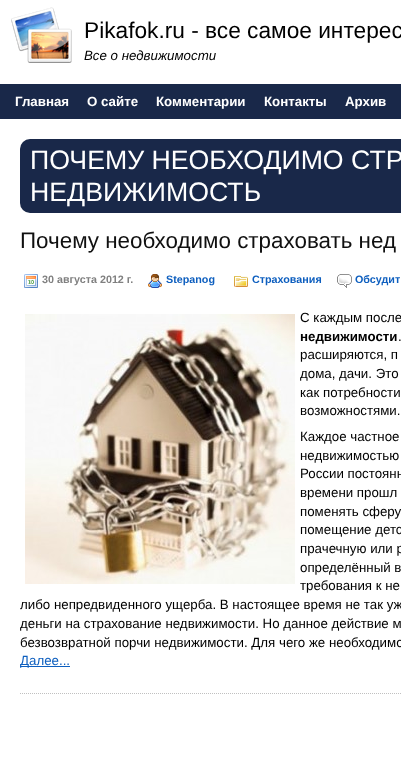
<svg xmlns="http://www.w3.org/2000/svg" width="401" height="760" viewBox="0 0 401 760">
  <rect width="100%" height="100%" fill="#ffffff"/>
  <image x="11" y="7" width="61" height="56" href="img1.png"/>
  <text x="84" y="38" font-family="Liberation Sans" font-size="22.7" fill="#000000">Pikafok.ru - все самое интерес</text>
  <text x="84" y="60" font-family="Liberation Sans" font-size="13.3" font-style="italic" fill="#000000">Все о недвижимости</text>
  <rect x="0" y="84" width="401" height="35" fill="#192849"/>
  <text x="15" y="106" font-family="Liberation Sans" font-size="13.3" font-weight="bold" fill="#ffffff">Главная</text>
  <text x="87" y="106" font-family="Liberation Sans" font-size="13.3" font-weight="bold" fill="#ffffff">О сайте</text>
  <text x="156" y="106" font-family="Liberation Sans" font-size="13.3" font-weight="bold" fill="#ffffff">Комментарии</text>
  <text x="264" y="106" font-family="Liberation Sans" font-size="13.3" font-weight="bold" fill="#ffffff">Контакты</text>
  <text x="345" y="106" font-family="Liberation Sans" font-size="13.3" font-weight="bold" fill="#ffffff">Архив</text>
  <rect x="20" y="139" width="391" height="74" rx="10" fill="#192849"/>
  <text x="30" y="169" font-family="Liberation Sans" font-size="26.7" fill="#ffffff">ПОЧЕМУ НЕОБХОДИМО СТР</text>
  <text x="30" y="201" font-family="Liberation Sans" font-size="26.7" fill="#ffffff">НЕДВИЖИМОСТЬ</text>
  <path d="M20 693.5H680" fill="none" stroke="#c0c0c0" stroke-dasharray="1 1"/>
  <text x="20" y="248" font-family="Liberation Sans" font-size="22.4" fill="#101010">Почему необходимо страховать нед</text>
  <image x="24" y="274" width="14" height="14" href="img2.png"/>
  <text x="42" y="283" font-family="Liberation Sans" font-size="10.75" font-weight="bold" fill="#808080">30 августа 2012 г.</text>
  <image x="148" y="274" width="14" height="14" href="img3.png"/>
  <text x="166" y="283" font-family="Liberation Sans" font-size="10.75" font-weight="bold" fill="#0e5fbf">Stepanog</text>
  <image x="234" y="276" width="14" height="11" href="img4.png"/>
  <text x="252" y="283" font-family="Liberation Sans" font-size="10.75" font-weight="bold" fill="#0e5fbf">Страхования</text>
  <image x="337" y="274" width="15" height="14" href="img5.png"/>
  <text x="355" y="283" font-family="Liberation Sans" font-size="10.75" font-weight="bold" fill="#0e5fbf">Обсудит</text>
  <image x="25" y="314" width="270" height="270" href="img6.png"/>
  <text x="300" y="322" font-family="Liberation Sans" font-size="13.3" fill="#000000">С каждым после</text>
  <text x="300" y="341" font-family="Liberation Sans" font-size="13.3" font-weight="bold" fill="#000000">недвижимости</text>
  <text x="398" y="341" font-family="Liberation Sans" font-size="13.3" fill="#000000">.</text>
  <text x="300" y="359" font-family="Liberation Sans" font-size="13.3" fill="#000000">расширяются, п</text>
  <text x="300" y="378" font-family="Liberation Sans" font-size="13.3" fill="#000000">дома, дачи. Это</text>
  <text x="300" y="397" font-family="Liberation Sans" font-size="13.3" fill="#000000">как потребности</text>
  <text x="300" y="415" font-family="Liberation Sans" font-size="13.3" fill="#000000">возможностями.</text>
  <text x="300" y="441" font-family="Liberation Sans" font-size="13.3" fill="#000000">Каждое частное</text>
  <text x="300" y="460" font-family="Liberation Sans" font-size="13.3" fill="#000000">недвижимостью</text>
  <text x="300" y="478" font-family="Liberation Sans" font-size="13.3" fill="#000000">России постоянн</text>
  <text x="300" y="497" font-family="Liberation Sans" font-size="13.3" fill="#000000">времени прошл</text>
  <text x="300" y="516" font-family="Liberation Sans" font-size="13.3" fill="#000000">поменять сферу</text>
  <text x="300" y="534" font-family="Liberation Sans" font-size="13.3" fill="#000000">помещение детс</text>
  <text x="300" y="553" font-family="Liberation Sans" font-size="13.3" fill="#000000">прачечную или р</text>
  <text x="300" y="572" font-family="Liberation Sans" font-size="13.3" fill="#000000">определённый в</text>
  <text x="300" y="590" font-family="Liberation Sans" font-size="13.3" fill="#000000">требования к не</text>
  <text x="20" y="609" font-family="Liberation Sans" font-size="13.3" fill="#000000">либо непредвиденного ущерба. В настоящее время не так уж</text>
  <text x="20" y="628" font-family="Liberation Sans" font-size="13.3" fill="#000000">деньги на страхование недвижимости. Но данное действие м</text>
  <text x="20" y="647" font-family="Liberation Sans" font-size="13.3" fill="#000000">безвозвратной порчи недвижимости. Для чего же необходимо</text>
  <rect x="20" y="666" width="50" height="1" fill="#0e5fbf"/>
  <text x="20" y="665" font-family="Liberation Sans" font-size="13.3" fill="#0e5fbf">Далее...</text>
</svg>
